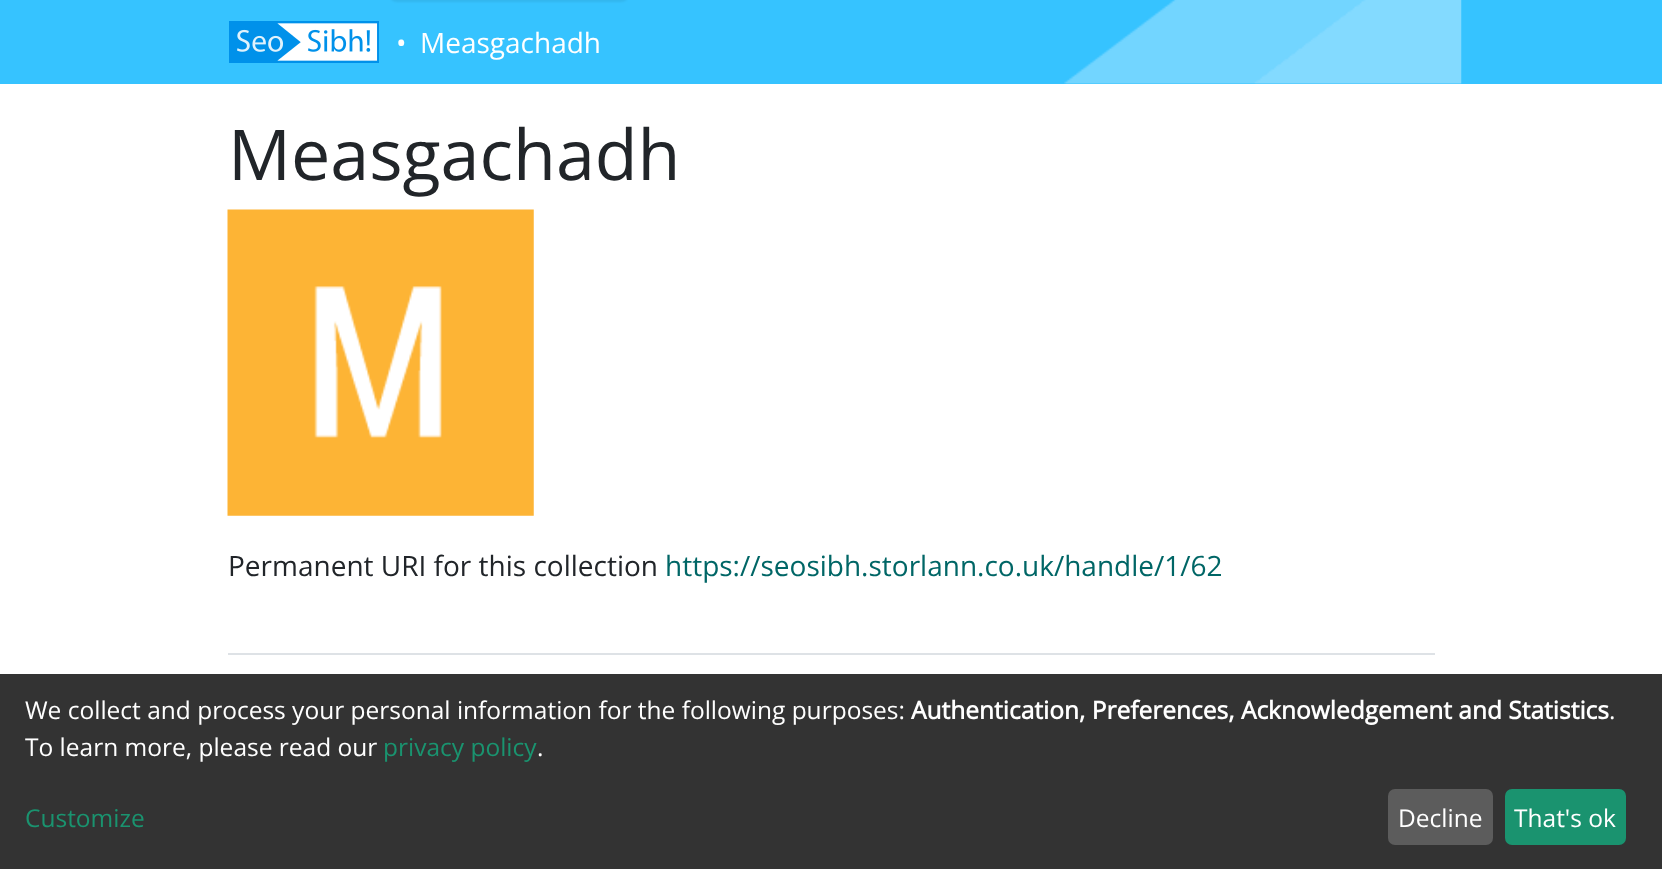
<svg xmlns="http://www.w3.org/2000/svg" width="1662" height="869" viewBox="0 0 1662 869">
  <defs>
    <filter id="blur1" x="-50%" y="-200%" width="200%" height="500%"><feGaussianBlur stdDeviation="1"/></filter>
  </defs>
  <rect width="100%" height="100%" fill="#ffffff"/>
  <rect x="0" y="0" width="1662" height="84" fill="#36c3ff"/>
  <rect x="390" y="-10" width="238" height="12" rx="7" fill="#000000" fill-opacity="0.07" filter="url(#blur1)"/>
  <image x="1064" y="0" width="398" height="84" href="img1.png"/>
  <image x="229" y="21" width="150" height="42" href="img2.png"/>
  <text x="396" y="53" font-family="Open Sans" font-size="28" fill="#ffffff">•</text>
  <text x="420" y="53" font-family="Open Sans" font-size="28" fill="#ffffff">Measgachadh</text>
  <rect x="228" y="653" width="1207" height="2" fill="#dee2e6"/>
  <text x="228" y="180" font-family="Open Sans" font-size="70" fill="#212529">Measgachadh</text>
  <image x="227" y="209" width="307" height="307" href="img3.png"/>
  <text x="228" y="576" font-family="Open Sans" font-size="28" fill="#212529">Permanent URI for this collection</text>
  <text x="665" y="576" font-family="Open Sans" font-size="28" fill="#006666">https://seosibh.storlann.co.uk/handle/1/62</text>
  <rect x="0" y="674" width="1662" height="195" fill="#333333"/>
  <text x="25" y="719" font-family="Open Sans" font-size="24.5" fill="#ffffff">We collect and process your personal information for the following purposes:</text>
  <text x="911" y="719" font-family="Open Sans" font-size="24.5" font-weight="bold" fill="#ffffff">Authentication, Preferences, Acknowledgement and Statistics</text>
  <text x="1609" y="719" font-family="Open Sans" font-size="24.5" fill="#ffffff">.</text>
  <text x="25" y="756" font-family="Open Sans" font-size="24.5" fill="#ffffff">To learn more, please read our</text>
  <text x="383" y="756" font-family="Open Sans" font-size="24.5" fill="#1a936f">privacy policy</text>
  <text x="537" y="756" font-family="Open Sans" font-size="24.5" fill="#ffffff">.</text>
  <text x="25" y="827" font-family="Open Sans" font-size="24.5" fill="#1a936f">Customize</text>
  <rect x="1388" y="789" width="105" height="56" rx="7" fill="#5c5c5c"/>
  <text x="1398" y="827" font-family="Open Sans" font-size="24.5" fill="#ffffff">Decline</text>
  <rect x="1505" y="789" width="121" height="56" rx="7" fill="#1a936f"/>
  <text x="1514" y="827" font-family="Open Sans" font-size="24.5" fill="#ffffff">That's ok</text>
</svg>
